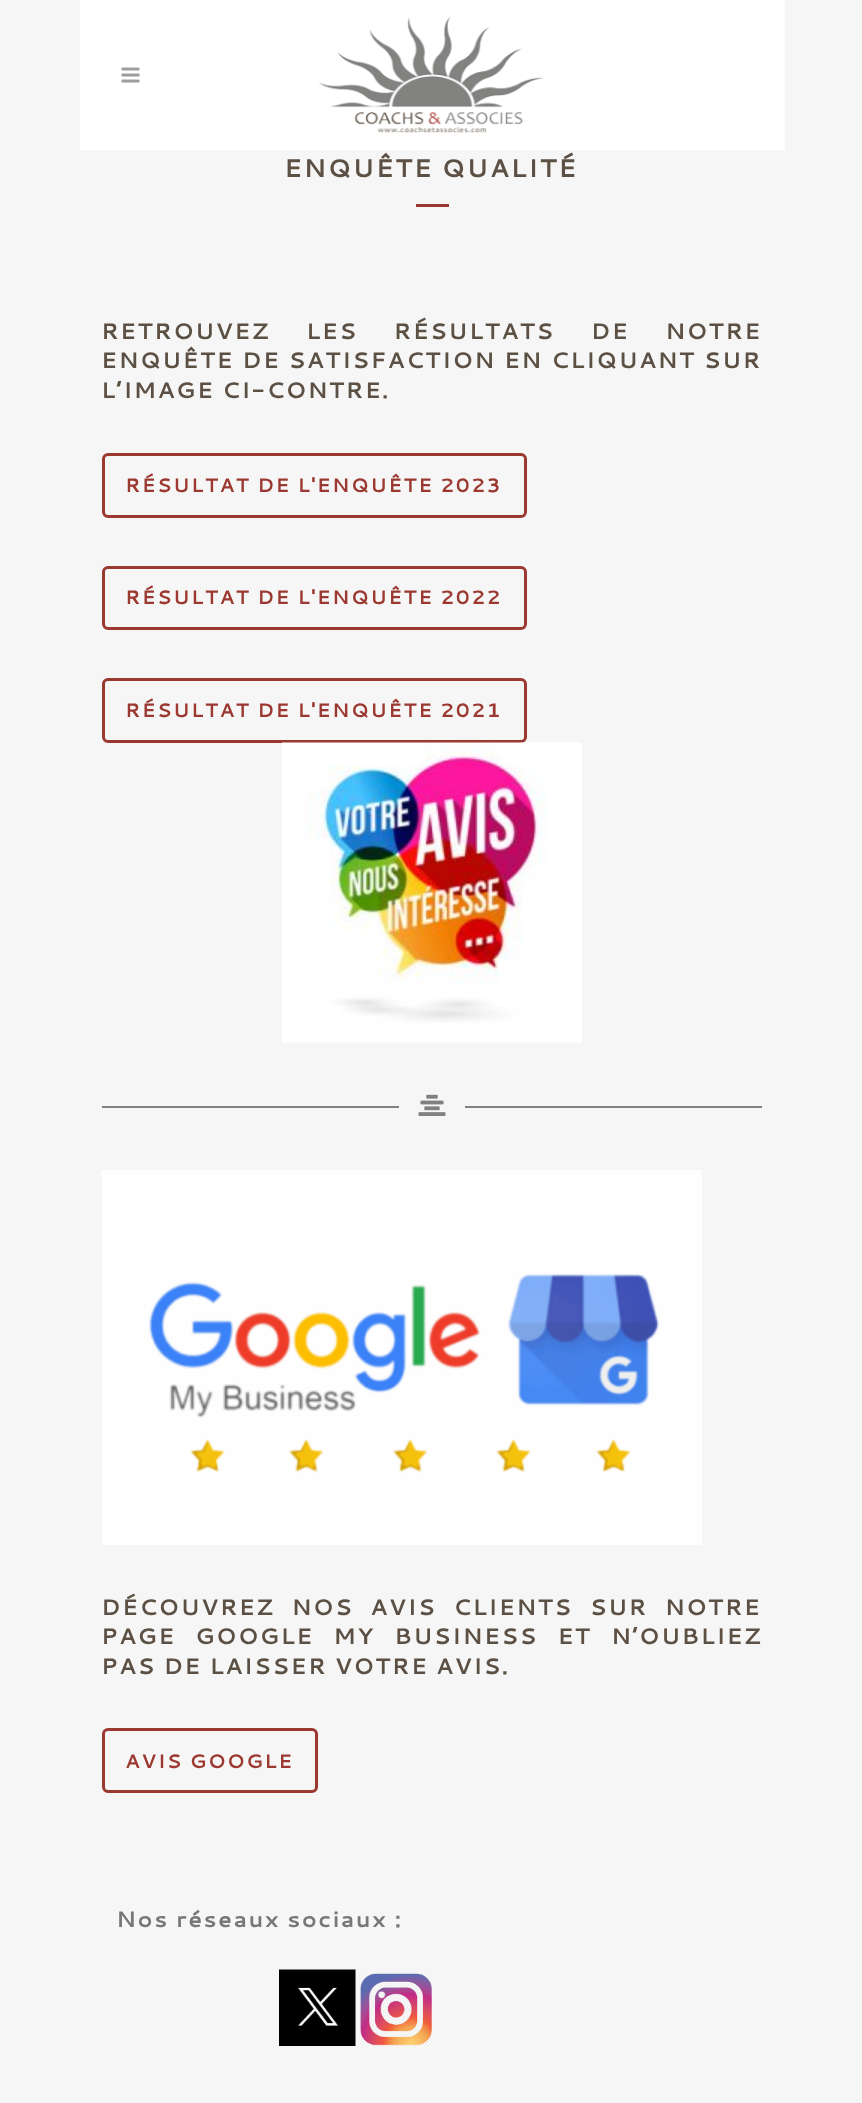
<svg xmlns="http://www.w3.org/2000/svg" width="862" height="2103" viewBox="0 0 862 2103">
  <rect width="100%" height="100%" fill="#f6f6f6"/>
  <rect x="80" y="0" width="705" height="150" fill="#ffffff"/>
  <image x="121" y="67" width="19" height="16" href="img1.png"/>
  <image x="318" y="16" width="226" height="117" href="img2.png"/>
  <text x="284" y="177" font-family="Cantarell" font-size="25.5" font-weight="bold" letter-spacing="1.5" fill="#5c5044">ENQUÊTE QUALITÉ</text>
  <rect x="416" y="204" width="33" height="3" fill="#9b3931"/>
  <text x="101" y="339" word-spacing="28.5" font-family="Cantarell" font-size="22.5" font-weight="bold" letter-spacing="1.5" fill="#5c5044">RETROUVEZ LES RÉSULTATS DE NOTRE</text>
  <text x="101" y="368" word-spacing="0.5" font-family="Cantarell" font-size="22.5" font-weight="bold" letter-spacing="1.5" fill="#5c5044">ENQUÊTE DE SATISFACTION EN CLIQUANT SUR</text>
  <text x="101" y="398" font-family="Cantarell" font-size="22.5" font-weight="bold" letter-spacing="1.5" fill="#5c5044">L’IMAGE CI-CONTRE.</text>
  <rect x="103.5" y="454.5" width="422" height="62" rx="4.5" fill="none" stroke="#9b3931" stroke-width="3"/>
  <text x="125" y="492" font-family="Cantarell" font-size="19.5" font-weight="bold" letter-spacing="1.5" fill="#9b3931">RÉSULTAT DE L'ENQUÊTE 2023</text>
  <rect x="103.5" y="567.5" width="422" height="61" rx="4.5" fill="none" stroke="#9b3931" stroke-width="3"/>
  <text x="125" y="604" font-family="Cantarell" font-size="19.5" font-weight="bold" letter-spacing="1.5" fill="#9b3931">RÉSULTAT DE L'ENQUÊTE 2022</text>
  <rect x="103.5" y="679.5" width="422" height="62" rx="4.5" fill="none" stroke="#9b3931" stroke-width="3"/>
  <text x="125" y="717" font-family="Cantarell" font-size="19.5" font-weight="bold" letter-spacing="1.5" fill="#9b3931">RÉSULTAT DE L'ENQUÊTE 2021</text>
  <image x="282" y="742" width="300" height="301" href="img3.png"/>
  <rect x="102" y="1106" width="297" height="2" fill="#818181"/>
  <image x="418" y="1094" width="28" height="22" href="img4.png"/>
  <rect x="465" y="1106" width="297" height="2" fill="#818181"/>
  <image x="102" y="1170" width="600" height="375" href="img5.png"/>
  <text x="101" y="1615" word-spacing="9.5" font-family="Cantarell" font-size="22.5" font-weight="bold" letter-spacing="1.5" fill="#5c5044">DÉCOUVREZ NOS AVIS CLIENTS SUR NOTRE</text>
  <text x="101" y="1644" word-spacing="12" font-family="Cantarell" font-size="22.5" font-weight="bold" letter-spacing="1.5" fill="#5c5044">PAGE GOOGLE MY BUSINESS ET N’OUBLIEZ</text>
  <text x="101" y="1674" font-family="Cantarell" font-size="22.5" font-weight="bold" letter-spacing="1.5" fill="#5c5044">PAS DE LAISSER VOTRE AVIS.</text>
  <rect x="103.5" y="1729.5" width="213" height="62" rx="4.5" fill="none" stroke="#9b3931" stroke-width="3"/>
  <text x="125" y="1768" font-family="Cantarell" font-size="19.5" font-weight="bold" letter-spacing="1.5" fill="#9b3931">AVIS GOOGLE</text>
  <text x="116" y="1927" font-family="Cantarell" font-size="22.5" font-weight="bold" letter-spacing="1.5" fill="#777777">Nos réseaux sociaux :</text>
  <image x="279" y="1969" width="77" height="77" href="img6.png"/>
  <image x="360" y="1972" width="72" height="74" href="img7.png"/>
</svg>
